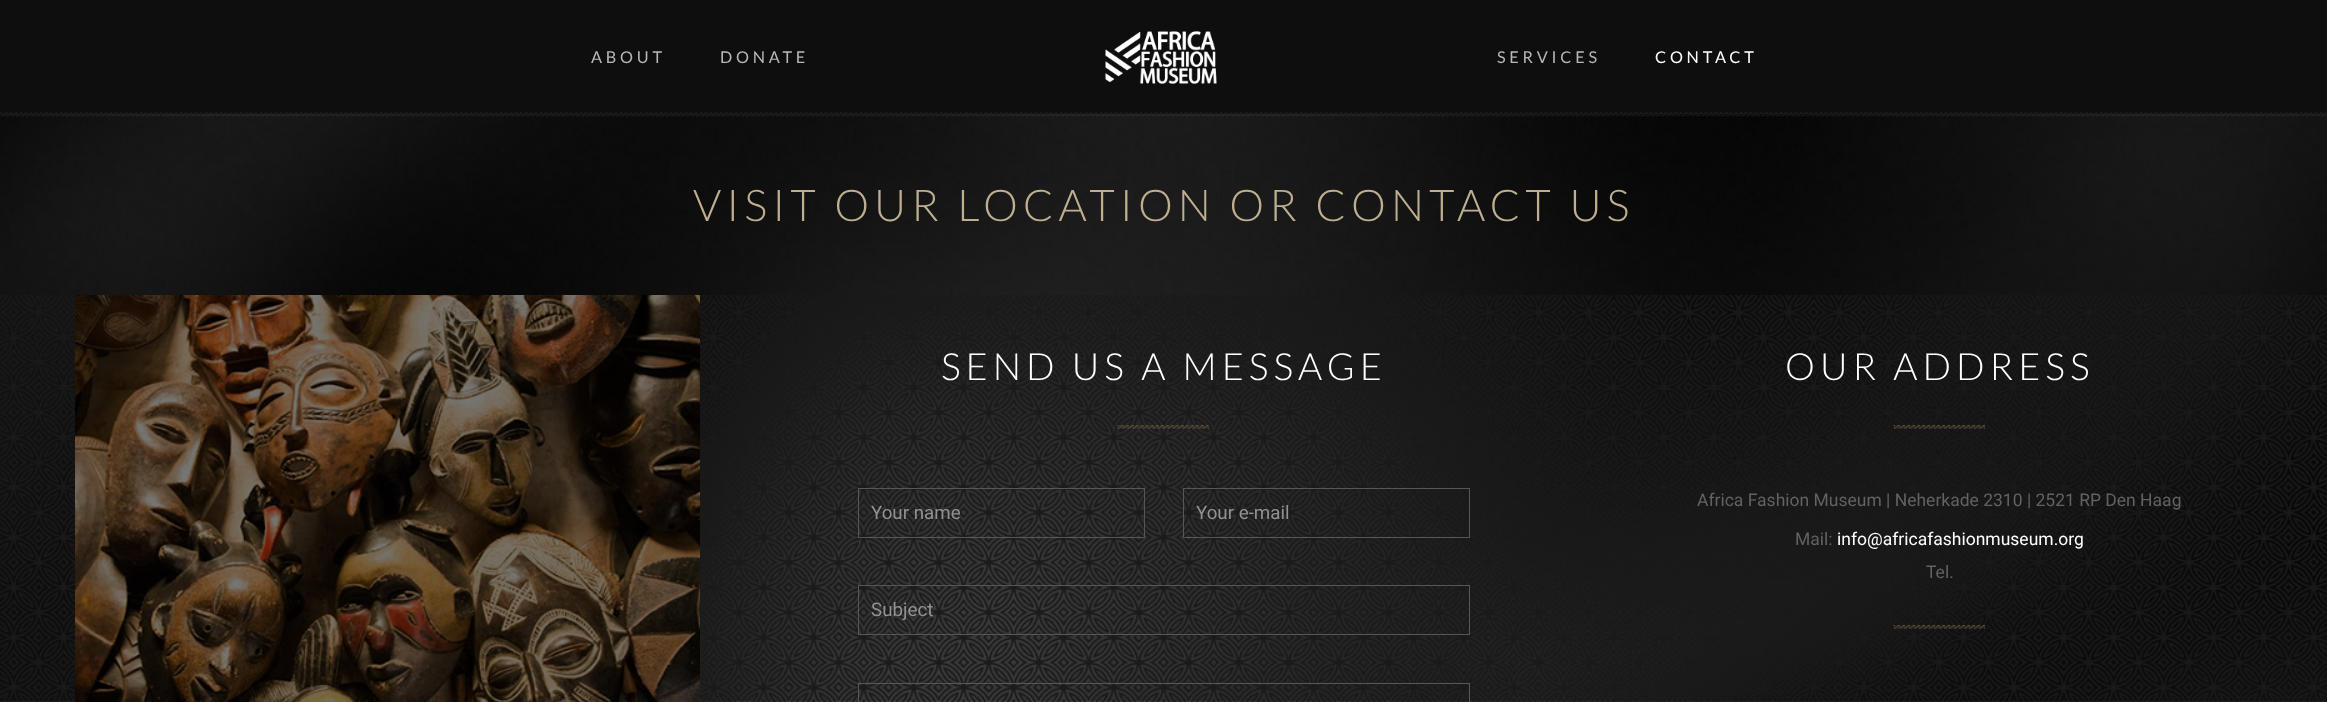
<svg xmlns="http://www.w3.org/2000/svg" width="2327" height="702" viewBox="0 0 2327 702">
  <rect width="100%" height="100%" fill="#ffffff"/>
  <image x="0" y="114" width="2327" height="588" href="img1.png"/>
  <rect x="0" y="0" width="2327" height="114" fill="#0e0e0e"/>
  <image x="1105" y="31" width="112" height="53" href="img2.png"/>
  <text x="591" y="63" font-family="Lato" font-size="16.25" letter-spacing="3.75" fill="#b6b7b7">ABOUT</text>
  <text x="720" y="63" font-family="Lato" font-size="16.25" letter-spacing="3.75" fill="#b6b7b7">DONATE</text>
  <text x="1497" y="63" font-family="Lato" font-size="16.25" letter-spacing="3.75" fill="#b6b7b7">SERVICES</text>
  <text x="1655" y="63" font-family="Lato" font-size="16.25" letter-spacing="3.75" fill="#ffffff">CONTACT</text>
  <image x="0" y="112" width="2327" height="5" href="img3.png"/>
  <text x="693" y="221" font-family="Lato" font-size="43.75" font-weight="300" letter-spacing="5" fill="#beaf90">VISIT OUR LOCATION OR CONTACT US</text>
  <image x="0" y="295" width="2327" height="407" href="img4.png"/>
  <image x="75" y="295" width="625" height="407" href="img5.png"/>
  <text x="941" y="380" font-family="Lato" font-size="37.5" font-weight="300" letter-spacing="5" fill="#ffffff">SEND US A MESSAGE</text>
  <image x="1117" y="425" width="92" height="4" href="img6.png"/>
  <rect x="858.5" y="488.5" width="286" height="49" fill="none" stroke="#575757"/>
  <text x="871" y="519" font-family="Roboto" font-size="18.75" fill="#929292">Your name</text>
  <rect x="1183.5" y="488.5" width="286" height="49" fill="none" stroke="#575757"/>
  <text x="1196" y="519" font-family="Roboto" font-size="18.75" fill="#929292">Your e-mail</text>
  <rect x="858.5" y="585.5" width="611" height="49" fill="none" stroke="#575757"/>
  <text x="871" y="616" font-family="Roboto" font-size="18.75" fill="#929292">Subject</text>
  <rect x="858.5" y="683.5" width="611" height="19" fill="none" stroke="#575757"/>
  <text x="1785" y="380" font-family="Lato" font-size="37.5" font-weight="300" letter-spacing="5" fill="#ffffff">OUR ADDRESS</text>
  <image x="1893" y="425" width="92" height="4" href="img7.png"/>
  <text x="1697" y="506" font-family="Roboto" font-size="17.5" fill="#626262">Africa Fashion Museum | Neherkade 2310 | 2521 RP Den Haag</text>
  <text x="1795" y="545" font-family="Roboto" font-size="17.5" fill="#626262">Mail:</text>
  <text x="1837" y="545" font-family="Roboto" font-size="17.5" fill="#ffffff">info@africafashionmuseum.org</text>
  <text x="1926" y="578" font-family="Roboto" font-size="17.5" fill="#626262">Tel.</text>
  <image x="1893" y="625" width="92" height="4" href="img8.png"/>
</svg>
